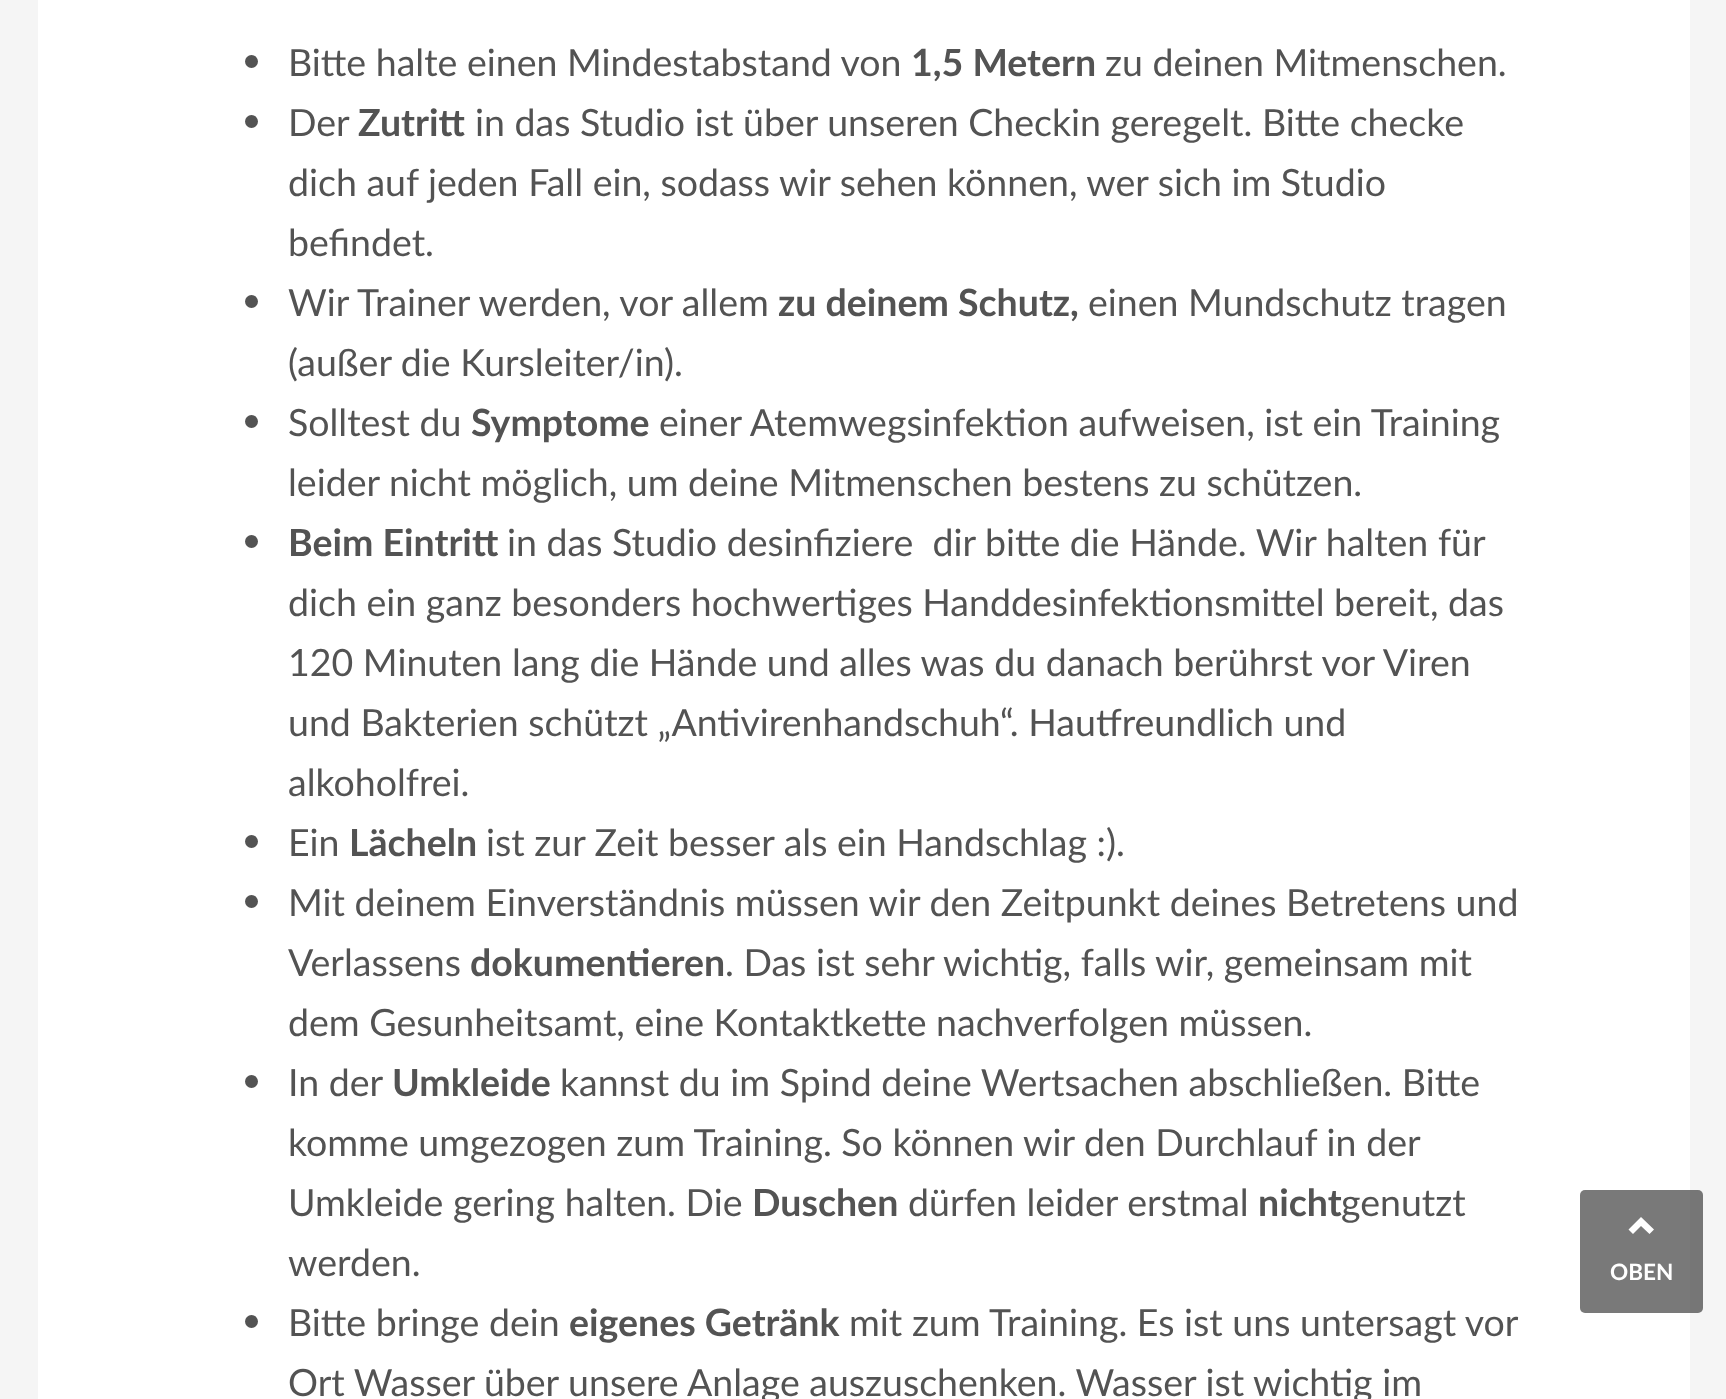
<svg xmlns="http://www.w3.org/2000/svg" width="1726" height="1399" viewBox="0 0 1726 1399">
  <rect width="100%" height="100%" fill="#f5f5f5"/>
  <rect x="38" y="0" width="1652" height="1399" fill="#ffffff"/>
  <circle cx="251.5" cy="61.5" r="6.5" fill="#535353"/>
  <text x="288" y="76" font-family="Lato" font-size="37.5" fill="#535353">Bitte halte einen Mindestabstand von</text>
  <text x="911" y="76" font-family="Lato" font-size="37.5" font-weight="bold" fill="#535353">1,5 Metern</text>
  <text x="1105" y="76" font-family="Lato" font-size="37.5" fill="#535353">zu deinen Mitmenschen.</text>
  <circle cx="251.5" cy="121.5" r="6.5" fill="#535353"/>
  <text x="288" y="136" font-family="Lato" font-size="37.5" fill="#535353">Der</text>
  <text x="358" y="136" font-family="Lato" font-size="37.5" font-weight="bold" fill="#535353">Zutritt</text>
  <text x="475" y="136" font-family="Lato" font-size="37.5" fill="#535353">in das Studio ist über unseren Checkin geregelt. Bitte checke</text>
  <text x="288" y="196" font-family="Lato" font-size="37.5" fill="#535353">dich auf jeden Fall ein, sodass wir sehen können, wer sich im Studio</text>
  <text x="288" y="256" font-family="Lato" font-size="37.5" fill="#535353">befindet.</text>
  <circle cx="251.5" cy="301.5" r="6.5" fill="#535353"/>
  <text x="288" y="316" font-family="Lato" font-size="37.5" fill="#535353">Wir Trainer werden, vor allem</text>
  <text x="778" y="316" font-family="Lato" font-size="37.5" font-weight="bold" fill="#535353">zu deinem Schutz,</text>
  <text x="1088" y="316" font-family="Lato" font-size="37.5" fill="#535353">einen Mundschutz tragen</text>
  <text x="288" y="376" font-family="Lato" font-size="37.5" fill="#535353">(außer die Kursleiter/in).</text>
  <circle cx="251.5" cy="421.5" r="6.5" fill="#535353"/>
  <text x="288" y="436" font-family="Lato" font-size="37.5" fill="#535353">Solltest du</text>
  <text x="471" y="436" font-family="Lato" font-size="37.5" font-weight="bold" fill="#535353">Symptome</text>
  <text x="659" y="436" font-family="Lato" font-size="37.5" fill="#535353">einer Atemwegsinfektion aufweisen, ist ein Training</text>
  <text x="288" y="496" font-family="Lato" font-size="37.5" fill="#535353">leider nicht möglich, um deine Mitmenschen bestens zu schützen.</text>
  <circle cx="251.5" cy="541.5" r="6.5" fill="#535353"/>
  <text x="288" y="556" font-family="Lato" font-size="37.5" font-weight="bold" fill="#535353">Beim Eintritt</text>
  <text x="507" y="556" font-family="Lato" font-size="37.5" fill="#535353" xml:space="preserve">in das Studio desinfiziere  dir bitte die Hände. Wir halten für</text>
  <text x="288" y="616" font-family="Lato" font-size="37.5" fill="#535353">dich ein ganz besonders hochwertiges Handdesinfektionsmittel bereit, das</text>
  <text x="288" y="676" font-family="Lato" font-size="37.5" fill="#535353">120 Minuten lang die Hände und alles was du danach berührst vor Viren</text>
  <text x="288" y="736" font-family="Lato" font-size="37.5" fill="#535353">und Bakterien schützt „Antivirenhandschuh“. Hautfreundlich und</text>
  <text x="288" y="796" font-family="Lato" font-size="37.5" fill="#535353">alkoholfrei.</text>
  <circle cx="251.5" cy="841.5" r="6.5" fill="#535353"/>
  <text x="288" y="856" font-family="Lato" font-size="37.5" fill="#535353">Ein</text>
  <text x="349" y="856" font-family="Lato" font-size="37.5" font-weight="bold" fill="#535353">Lächeln</text>
  <text x="486" y="856" font-family="Lato" font-size="37.5" fill="#535353">ist zur Zeit besser als ein Handschlag :).</text>
  <circle cx="251.5" cy="901.5" r="6.5" fill="#535353"/>
  <text x="288" y="916" font-family="Lato" font-size="37.5" fill="#535353">Mit deinem Einverständnis müssen wir den Zeitpunkt deines Betretens und</text>
  <text x="288" y="976" font-family="Lato" font-size="37.5" fill="#535353">Verlassens</text>
  <text x="470" y="976" font-family="Lato" font-size="37.5" font-weight="bold" fill="#535353">dokumentieren</text>
  <text x="725" y="976" font-family="Lato" font-size="37.5" fill="#535353">. Das ist sehr wichtig, falls wir, gemeinsam mit</text>
  <text x="288" y="1036" font-family="Lato" font-size="37.5" fill="#535353">dem Gesunheitsamt, eine Kontaktkette nachverfolgen müssen.</text>
  <circle cx="251.5" cy="1081.5" r="6.5" fill="#535353"/>
  <text x="288" y="1096" font-family="Lato" font-size="37.5" fill="#535353">In der</text>
  <text x="392" y="1096" font-family="Lato" font-size="37.5" font-weight="bold" fill="#535353">Umkleide</text>
  <text x="560" y="1096" font-family="Lato" font-size="37.5" fill="#535353">kannst du im Spind deine Wertsachen abschließen. Bitte</text>
  <text x="288" y="1156" font-family="Lato" font-size="37.5" fill="#535353">komme umgezogen zum Training. So können wir den Durchlauf in der</text>
  <text x="288" y="1216" font-family="Lato" font-size="37.5" fill="#535353">Umkleide gering halten. Die</text>
  <text x="752" y="1216" font-family="Lato" font-size="37.5" font-weight="bold" fill="#535353">Duschen</text>
  <text x="908" y="1216" font-family="Lato" font-size="37.5" fill="#535353">dürfen leider erstmal</text>
  <text x="1258" y="1216" font-family="Lato" font-size="37.5" font-weight="bold" fill="#535353">nicht</text>
  <text x="1341" y="1216" font-family="Lato" font-size="37.5" fill="#535353">genutzt</text>
  <text x="288" y="1276" font-family="Lato" font-size="37.5" fill="#535353">werden.</text>
  <circle cx="251.5" cy="1321.5" r="6.5" fill="#535353"/>
  <text x="288" y="1336" font-family="Lato" font-size="37.5" fill="#535353">Bitte bringe dein</text>
  <text x="569" y="1336" font-family="Lato" font-size="37.5" font-weight="bold" fill="#535353">eigenes Getränk</text>
  <text x="849" y="1336" font-family="Lato" font-size="37.5" fill="#535353">mit zum Training. Es ist uns untersagt vor</text>
  <text x="288" y="1396" font-family="Lato" font-size="37.5" fill="#535353">Ort Wasser über unsere Anlage auszuschenken. Wasser ist wichtig im</text>
  <rect x="1580" y="1190" width="123" height="123" rx="5" fill="#404040" fill-opacity="0.7"/>
  <path d="M1641 1217L1654 1229.5L1649.5 1234L1641 1226L1633 1234L1628.5 1229.5Z" fill="#ffffff"/>
  <text x="1610" y="1280" font-family="Lato" font-size="22.5" font-weight="bold" fill="#ffffff">OBEN</text>
</svg>
